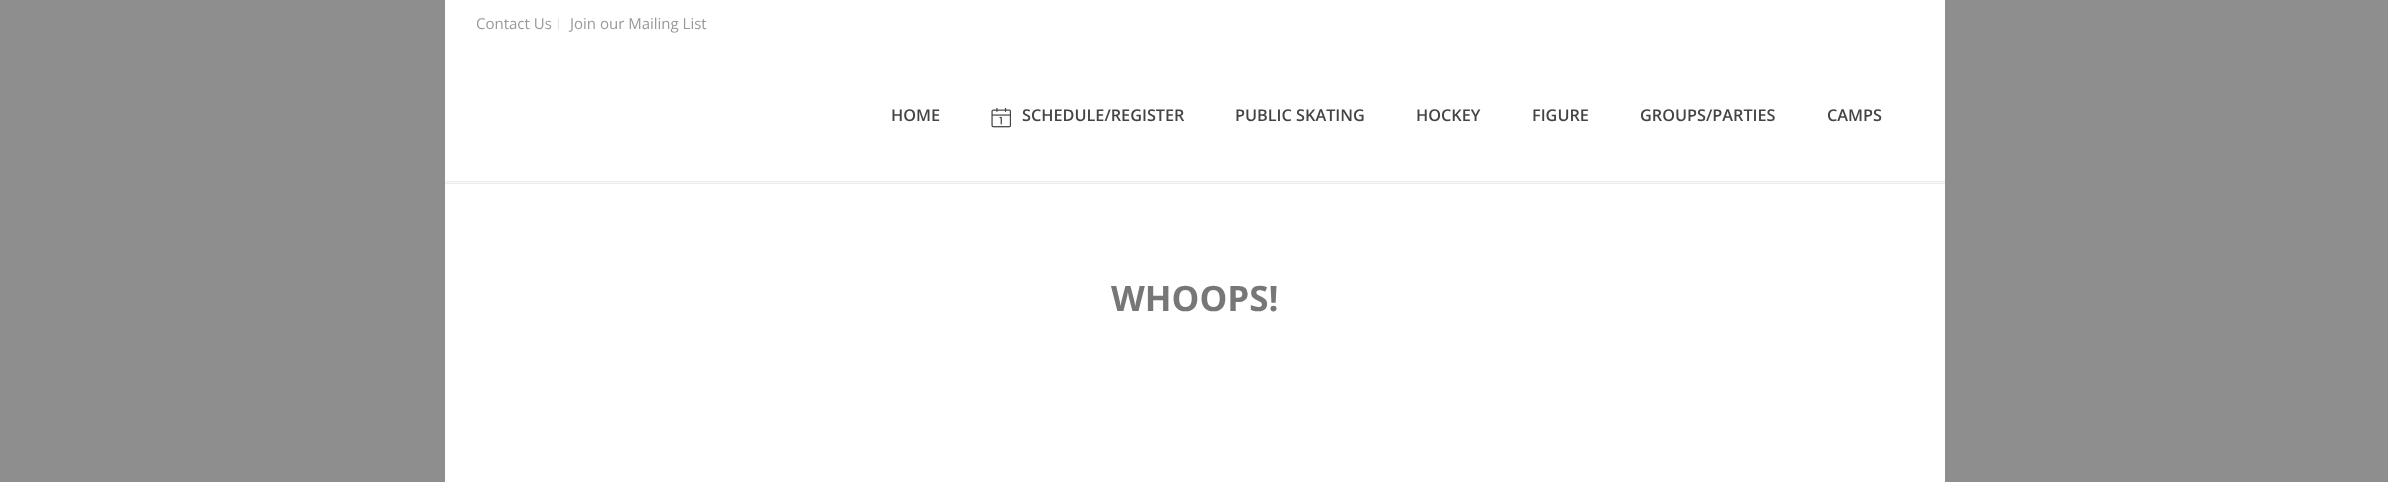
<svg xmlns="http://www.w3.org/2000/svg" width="2388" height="482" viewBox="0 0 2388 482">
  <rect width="100%" height="100%" fill="#8e8e8e"/>
  <rect x="445" y="182" width="1500" height="1" fill="#f7f7f7"/>
  <rect x="445" y="183" width="1500" height="1" fill="#ededed"/>
  <rect x="445" y="0" width="1500" height="181" fill="#ffffff"/>
  <rect x="558" y="18" width="1" height="12" fill="#e6e6e6"/>
  <text x="476" y="29" font-family="Open Sans" font-size="15" fill="#999999">Contact Us</text>
  <text x="570" y="29" font-family="Open Sans" font-size="15" fill="#999999">Join our Mailing List</text>
  <rect x="445" y="181" width="1500" height="1" fill="#ededed"/>
  <text x="891" y="121" font-family="Open Sans" font-size="16.25" font-weight="600" fill="#444444">HOME</text>
  <image x="991" y="108" width="20" height="20" href="img1.png"/>
  <text x="1022" y="121" font-family="Open Sans" font-size="16.25" font-weight="600" fill="#444444">SCHEDULE/REGISTER</text>
  <text x="1235" y="121" font-family="Open Sans" font-size="16.25" font-weight="600" fill="#444444">PUBLIC SKATING</text>
  <text x="1416" y="121" font-family="Open Sans" font-size="16.25" font-weight="600" fill="#444444">HOCKEY</text>
  <text x="1532" y="121" font-family="Open Sans" font-size="16.25" font-weight="600" fill="#444444">FIGURE</text>
  <text x="1640" y="121" font-family="Open Sans" font-size="16.25" font-weight="600" fill="#444444">GROUPS/PARTIES</text>
  <text x="1827" y="121" font-family="Open Sans" font-size="16.25" font-weight="600" fill="#444444">CAMPS</text>
  <rect x="445" y="184" width="1500" height="298" fill="#ffffff"/>
  <text x="1111" y="311" font-family="Open Sans" font-size="35" font-weight="bold" fill="#777777">WHOOPS!</text>
</svg>
